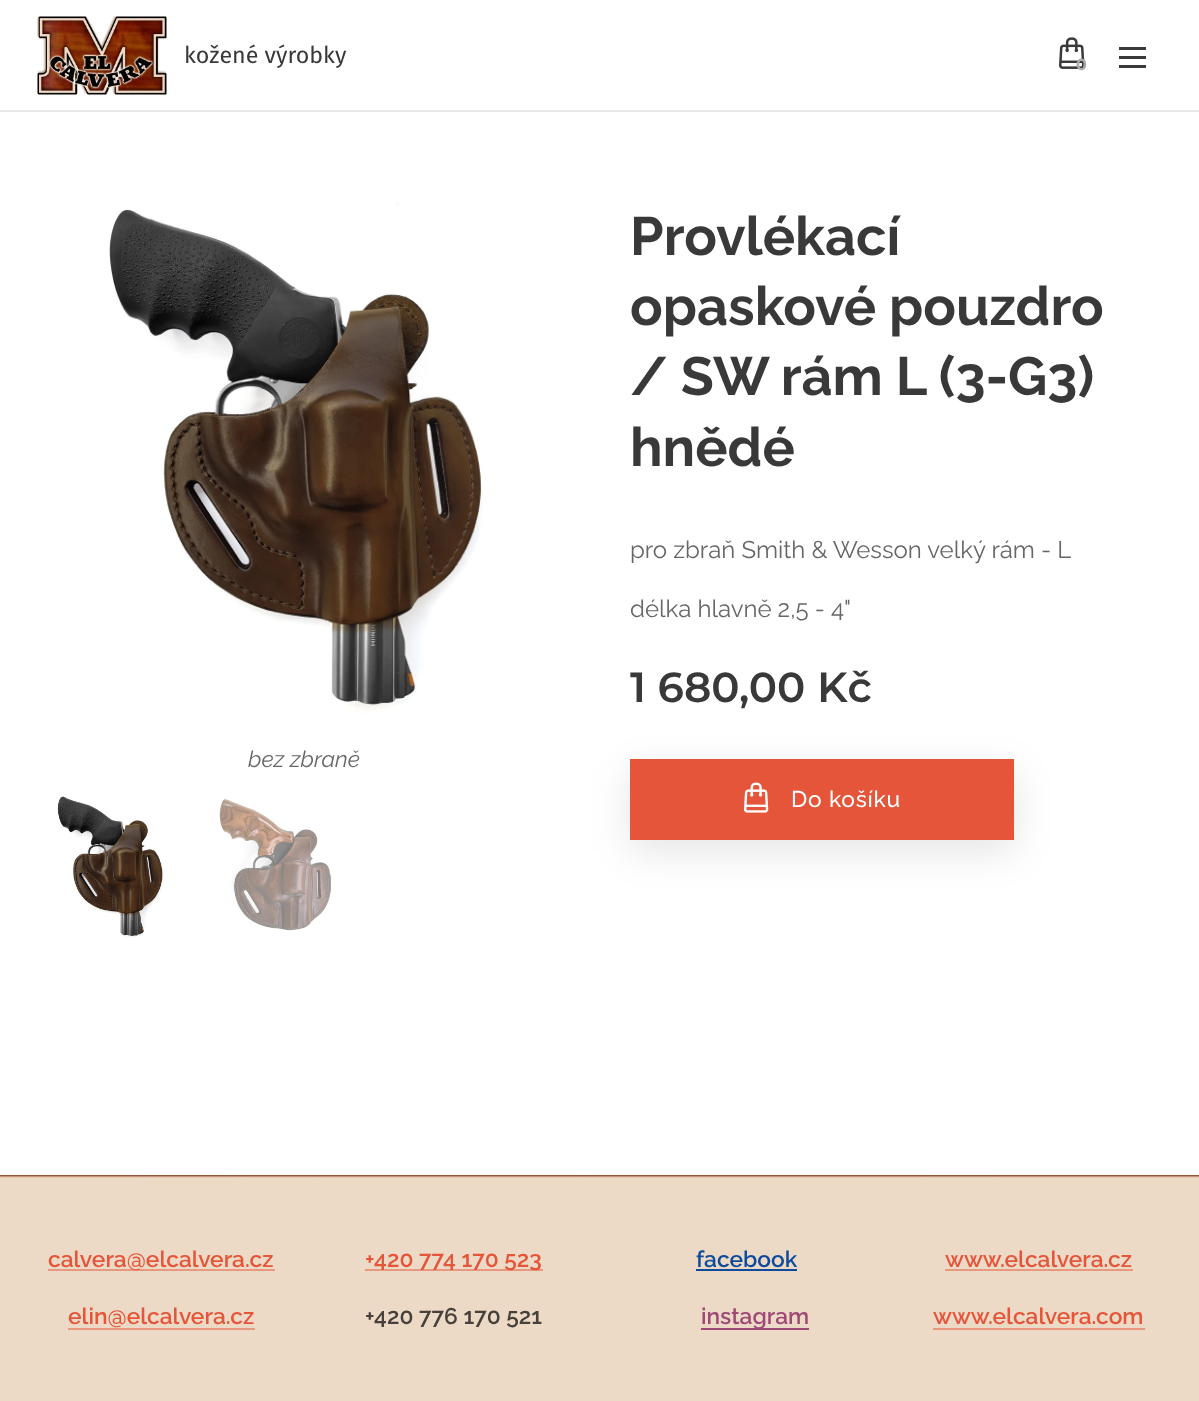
<svg xmlns="http://www.w3.org/2000/svg" width="1199" height="1401" viewBox="0 0 1199 1401">
  <defs>
    <filter id="blur1" x="-50%" y="-200%" width="200%" height="500%"><feGaussianBlur stdDeviation="19"/></filter>
  </defs>
  <rect width="100%" height="100%" fill="#ffffff"/>
  <image x="37" y="16" width="130" height="79" href="img1.png"/>
  <text x="184" y="63" font-family="Fira Sans" font-size="23.25" fill="#393939">kožené výrobky</text>
  <image x="1059" y="37" width="26" height="32" href="img2.png"/>
  <text x="1076" y="70" font-family="Montserrat" font-size="16" font-weight="bold" fill="#ababab">0</text>
  <rect x="1119" y="56" width="27" height="3" fill="#393939"/>
  <rect x="1119" y="47" width="27" height="3" fill="#393939"/>
  <rect x="1119" y="65" width="27" height="3" fill="#393939"/>
  <rect x="0" y="110" width="1199" height="2" fill="#e8e8e8"/>
  <text x="630" y="255" font-family="Raleway" font-size="54" font-weight="bold" fill="#393939">Provlékací</text>
  <text x="630" y="325" font-family="Raleway" font-size="54" font-weight="bold" fill="#393939">opaskové pouzdro</text>
  <text x="630" y="395" font-family="Raleway" font-size="54" font-weight="bold" fill="#393939">/ SW rám L (3-G3)</text>
  <text x="630" y="466" font-family="Raleway" font-size="54" font-weight="bold" fill="#393939">hnědé</text>
  <image x="109" y="202" width="374" height="512" href="img3.png"/>
  <text x="248" y="767" font-family="Raleway" font-size="22.75" font-style="italic" fill="#666666">bez zbraně</text>
  <image x="57" y="796" width="106" height="143" href="img4.png"/>
  <image x="219" y="799" width="113" height="132" href="img5.png"/>
  <text x="630" y="558" font-family="Raleway" font-size="24" fill="#666666">pro zbraň Smith &amp; Wesson velký rám - L</text>
  <text x="630" y="617" font-family="Raleway" font-size="24" fill="#666666">délka hlavně 2,5 - 4"</text>
  <text x="630" y="702" font-family="Montserrat" font-size="42" font-weight="600" fill="#393939">1 680,00 Kč</text>
  <rect x="630" y="771" width="384" height="81" fill="#000000" fill-opacity="0.1" filter="url(#blur1)"/>
  <rect x="630" y="759" width="384" height="81" fill="#e55539"/>
  <image x="744" y="782" width="25" height="31" href="img6.png"/>
  <text x="791" y="807" font-family="Raleway" font-size="22.75" font-weight="500" letter-spacing="0.75" fill="#ffffff">Do košíku</text>
  <image x="0" y="1175" width="1199" height="226" href="img7.png"/>
  <rect x="48" y="1269" width="227" height="2" fill="#e99880"/>
  <text x="48" y="1267" font-family="Raleway" font-size="22.75" font-weight="600" fill="#e55539">calvera@elcalvera.cz</text>
  <text x="68" y="1324" font-family="Raleway" font-size="22.75" font-weight="600" fill="#e55539">elin@elcalvera.cz</text>
  <rect x="68" y="1328" width="187" height="2" fill="#e99880"/>
  <rect x="365" y="1269" width="178" height="2" fill="#e99880"/>
  <text x="365" y="1267" font-family="Raleway" font-size="22.75" font-weight="600" fill="#e55539">+420 774 170 523</text>
  <text x="365" y="1324" font-family="Raleway" font-size="22.75" font-weight="600" fill="#47413c">+420 776 170 521</text>
  <text x="696" y="1267" font-family="Raleway" font-size="22.75" font-weight="600" fill="#0e4b9c">facebook</text>
  <rect x="696" y="1269" width="101" height="2" fill="#0e4b9c"/>
  <rect x="701" y="1328" width="108" height="2" fill="#9f4976"/>
  <text x="701" y="1324" font-family="Raleway" font-size="22.75" font-weight="600" fill="#9f4976">instagram</text>
  <text x="945" y="1267" font-family="Raleway" font-size="22.75" font-weight="600" fill="#e55539">www.elcalvera.cz</text>
  <rect x="945" y="1269" width="188" height="2" fill="#e99880"/>
  <text x="933" y="1324" font-family="Raleway" font-size="22.75" font-weight="600" fill="#e55539">www.elcalvera.com</text>
  <rect x="933" y="1328" width="212" height="2" fill="#e99880"/>
</svg>
